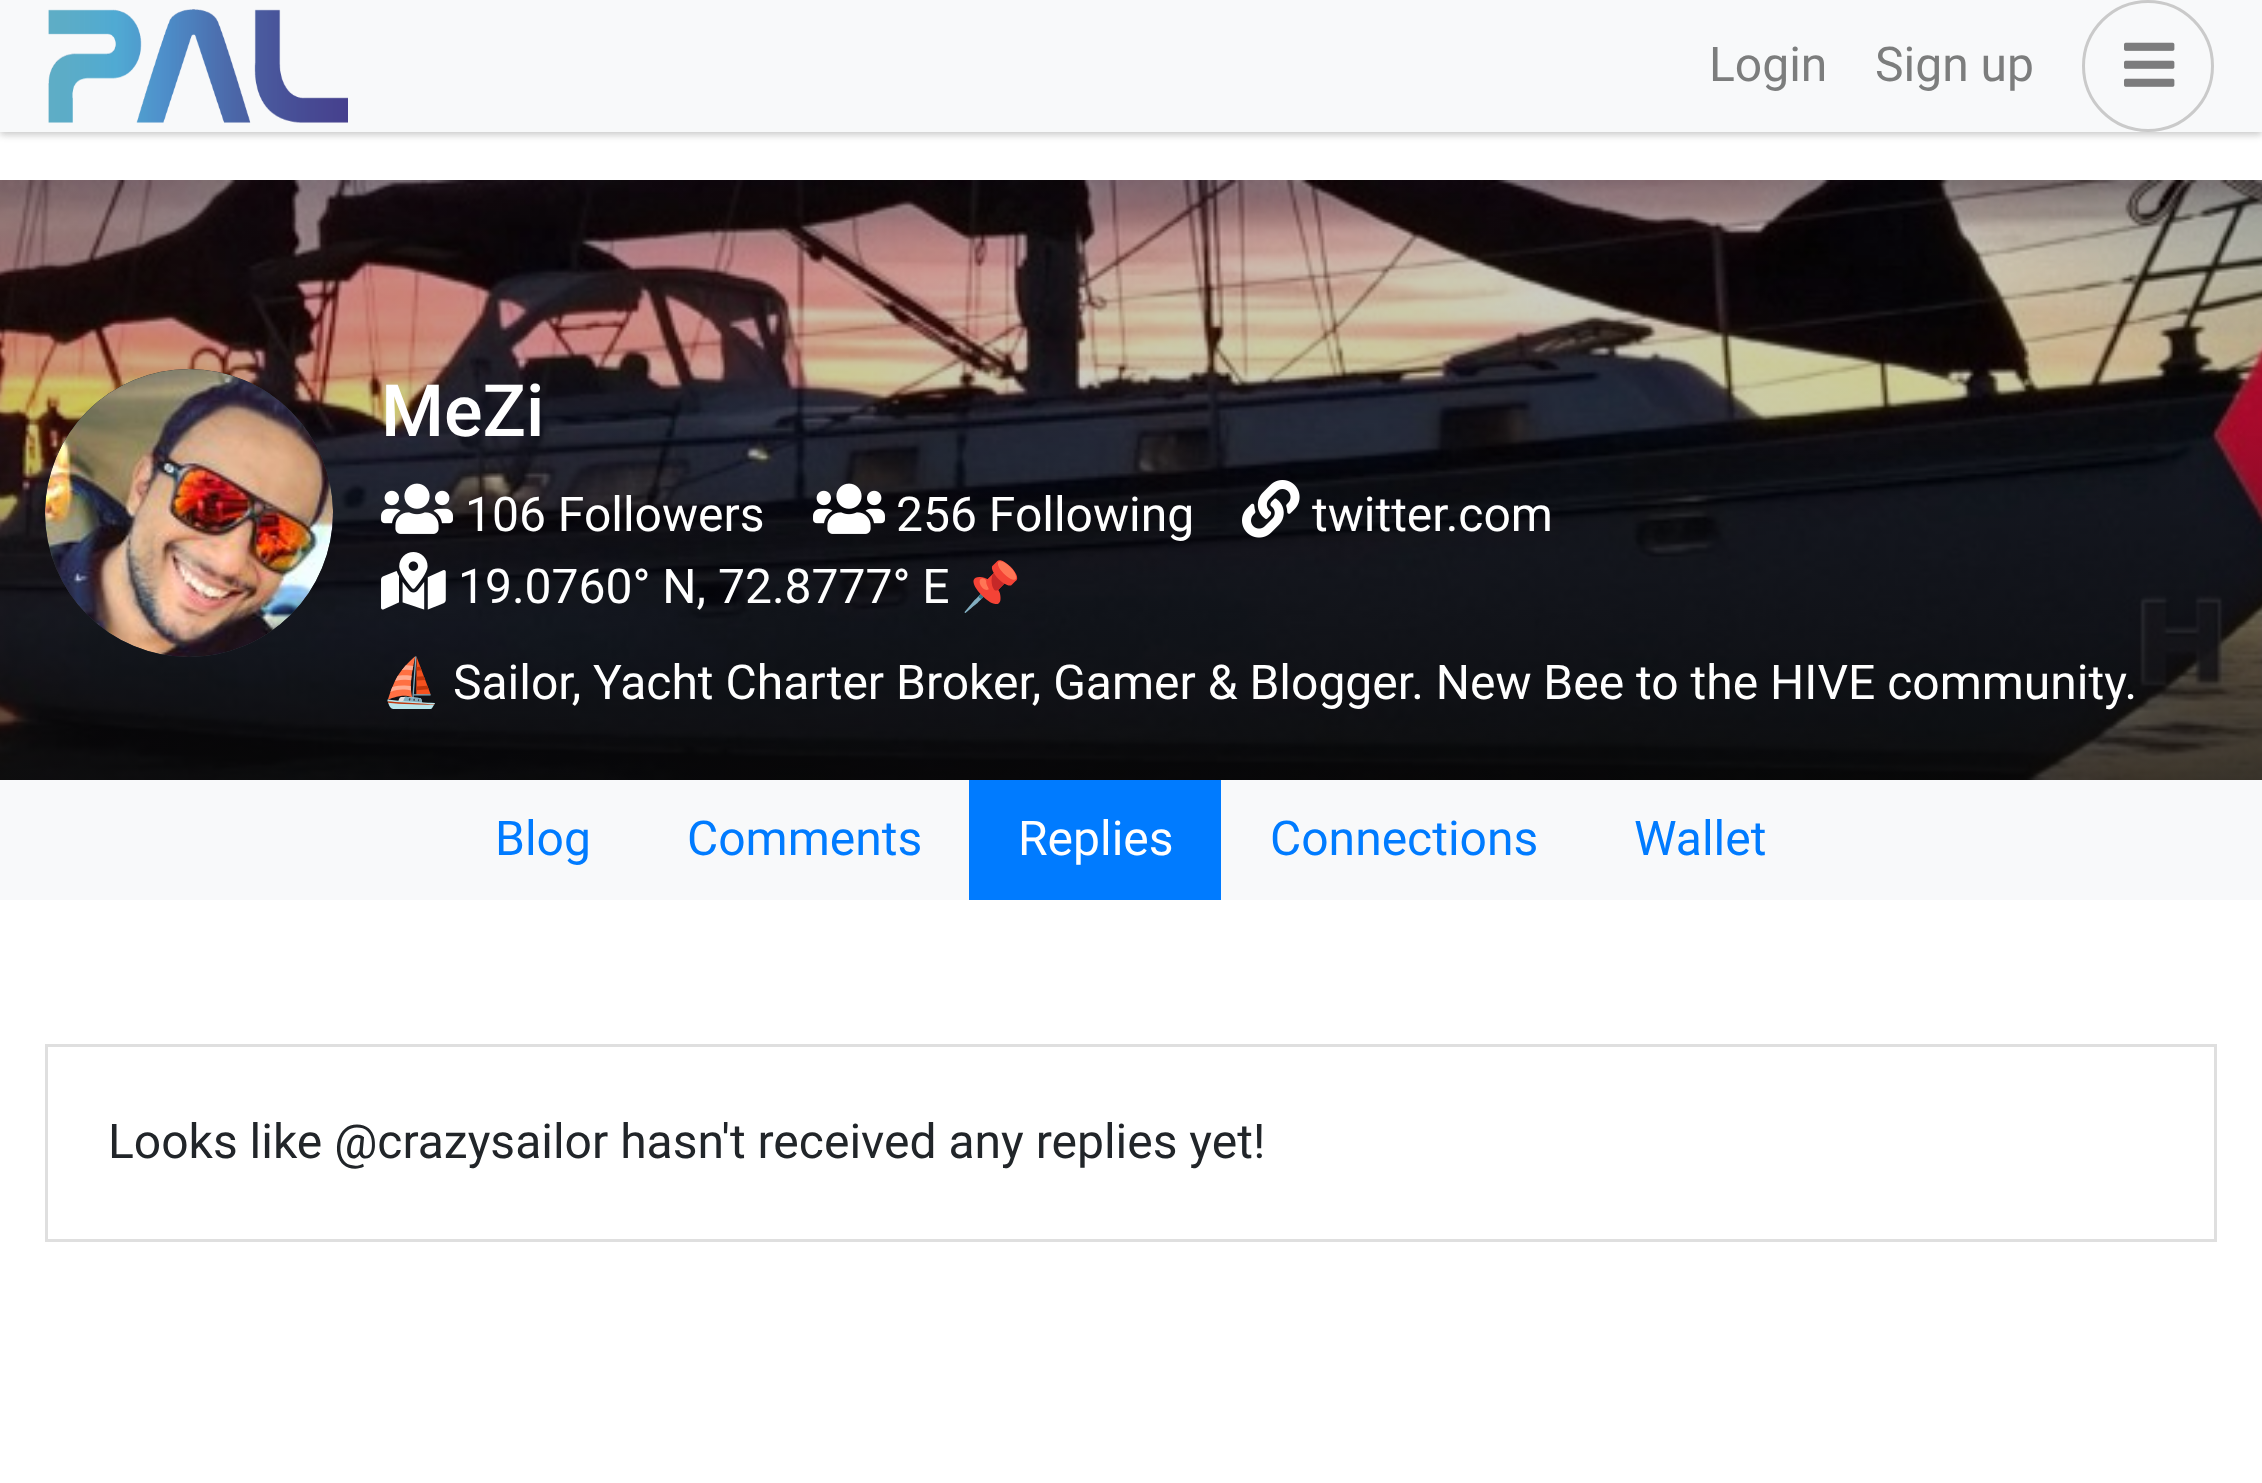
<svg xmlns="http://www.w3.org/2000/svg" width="2262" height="1483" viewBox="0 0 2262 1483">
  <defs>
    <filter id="blur1" x="-50%" y="-200%" width="200%" height="500%"><feGaussianBlur stdDeviation="3"/></filter>
    <filter id="blur2" x="-50%" y="-200%" width="200%" height="500%"><feGaussianBlur stdDeviation="4.5"/></filter>
  </defs>
  <rect width="100%" height="100%" fill="#ffffff"/>
  <rect x="0" y="3" width="2262" height="132" fill="#000000" fill-opacity="0.14" filter="url(#blur1)"/>
  <rect x="0" y="3" width="2262" height="132" fill="#000000" fill-opacity="0.07" filter="url(#blur2)"/>
  <rect x="0" y="0" width="2262" height="132" fill="#f8f9fa"/>
  <image x="48" y="9" width="300" height="114" href="img1.png"/>
  <text x="1709" y="81" font-family="Roboto" font-size="48" fill="#7c7d7d">Login</text>
  <text x="1875" y="81" font-family="Roboto" font-size="48" fill="#7c7d7d">Sign up</text>
  <circle cx="2148" cy="66" r="64.5" fill="none" stroke="#cacaca" stroke-width="3"/>
  <image x="2124" y="42" width="51" height="45" href="img2.png"/>
  <image x="0" y="180" width="2262" height="600" href="img3.png"/>
  <circle cx="189" cy="513" r="144" fill="#343a40"/>
  <image x="45" y="369" width="288" height="288" href="img4.png"/>
  <text x="381" y="436" font-family="Roboto" font-size="72" font-weight="500" fill="#ffffff">MeZi</text>
  <image x="381" y="483" width="72" height="51" href="img5.png"/>
  <text x="465" y="531" font-family="Roboto" font-size="48" fill="#ffffff">106 Followers</text>
  <image x="813" y="483" width="72" height="51" href="img6.png"/>
  <text x="896" y="531" font-family="Roboto" font-size="48" fill="#ffffff">256 Following</text>
  <image x="1242" y="480" width="58" height="58" href="img7.png"/>
  <text x="1312" y="531" font-family="Roboto" font-size="48" fill="#ffffff">twitter.com</text>
  <image x="381" y="552" width="65" height="58" href="img8.png"/>
  <text x="458" y="603" font-family="Roboto" font-size="48" fill="#ffffff">19.0760° N, 72.8777° E</text>
  <text x="961" y="603" font-family="Noto Color Emoji" font-size="48" fill="#ffffff">📌</text>
  <text x="381" y="699" font-family="Noto Color Emoji" font-size="48" fill="#ffffff">⛵️</text>
  <text x="453" y="699" font-family="Roboto" font-size="48" fill="#ffffff">Sailor, Yacht Charter Broker, Gamer &amp; Blogger. New Bee to the HIVE community.</text>
  <rect x="0" y="780" width="2262" height="120" fill="#f8f9fa"/>
  <text x="495" y="855" font-family="Roboto" font-size="48" fill="#007bff">Blog</text>
  <text x="687" y="855" font-family="Roboto" font-size="48" fill="#007bff">Comments</text>
  <rect x="969" y="780" width="252" height="120" fill="#007bff"/>
  <text x="1018" y="855" font-family="Roboto" font-size="48" fill="#ffffff">Replies</text>
  <text x="1270" y="855" font-family="Roboto" font-size="48" fill="#007bff">Connections</text>
  <text x="1634" y="855" font-family="Roboto" font-size="48" fill="#007bff">Wallet</text>
  <rect x="46.5" y="1045.5" width="2169" height="195" fill="none" stroke="#dfdfdf" stroke-width="3"/>
  <text x="108" y="1158" font-family="Roboto" font-size="48" fill="#212529">Looks like @crazysailor hasn't received any replies yet!</text>
</svg>
